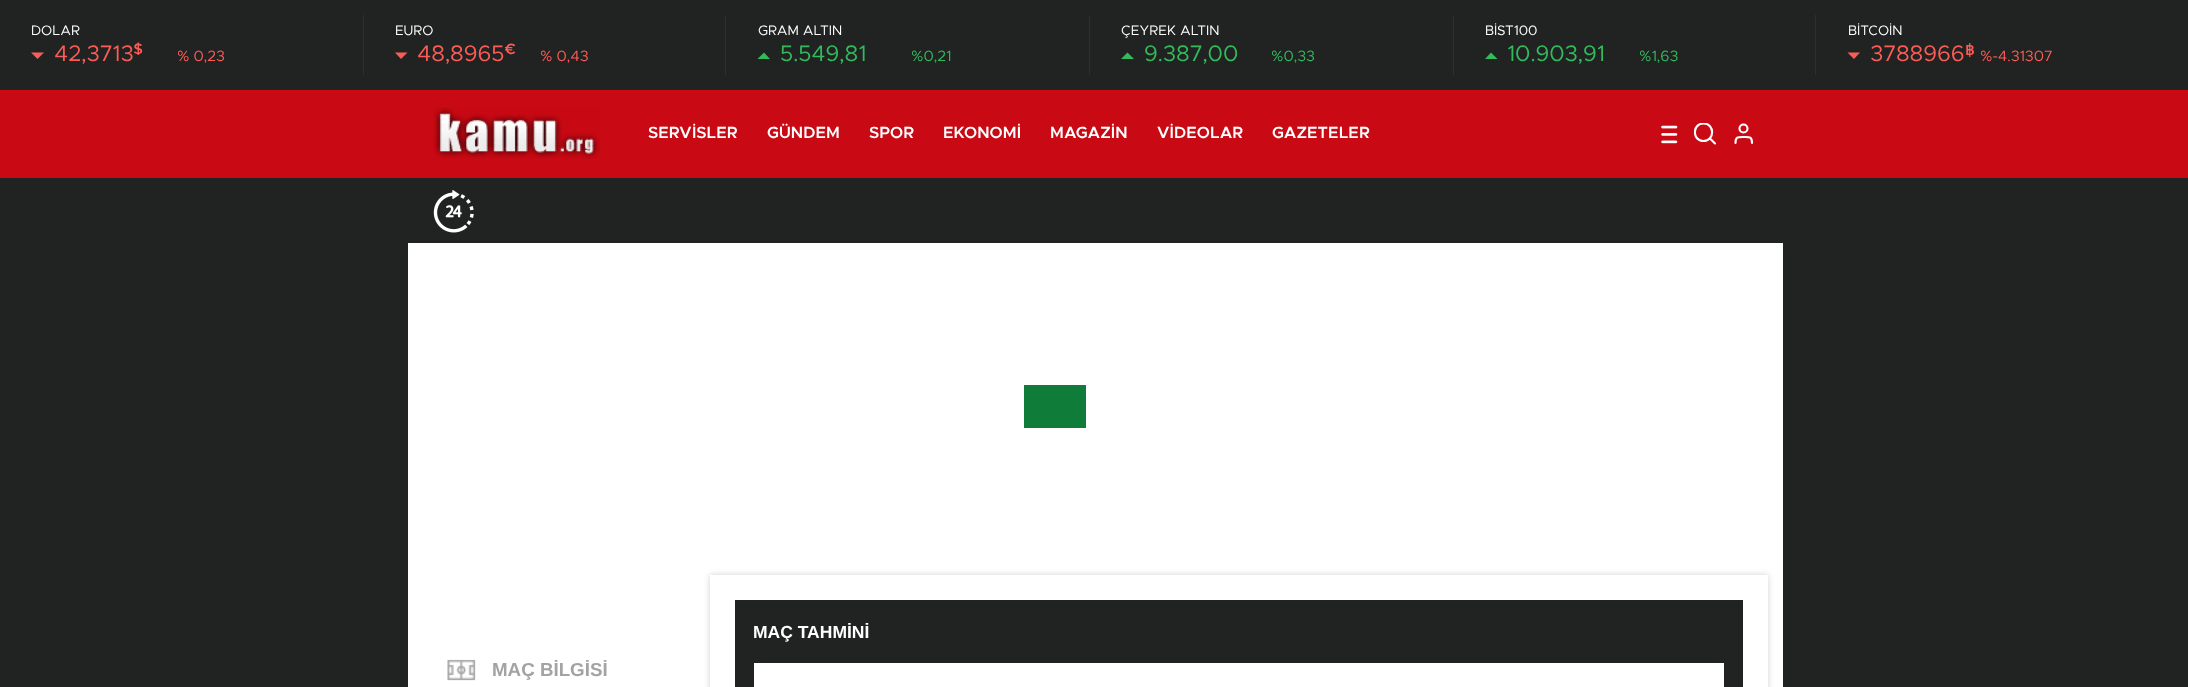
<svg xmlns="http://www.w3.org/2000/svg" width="2188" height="687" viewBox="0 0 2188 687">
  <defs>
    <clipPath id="clip1"><rect x="1694" y="123" width="24" height="22"/></clipPath>
    <filter id="blur1" x="-50%" y="-200%" width="200%" height="500%"><feGaussianBlur stdDeviation="3"/></filter>
  </defs>
  <rect width="100%" height="100%" fill="#202322"/>
  <text x="31" y="35" font-family="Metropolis" font-size="13.75" fill="#ffffff">DOLAR</text>
  <path d="M31 52.5H44L37.5 59Z" fill="#fd5c56"/>
  <text x="54" y="61" font-family="Metropolis" font-size="22.5" fill="#fd5c56">42,3713</text>
  <text x="133" y="54" font-family="Metropolis" font-size="15" font-weight="600" fill="#fd5c56">$</text>
  <text x="177" y="61" font-family="Metropolis" font-size="15" fill="#fd5c56">% 0,23</text>
  <rect x="363" y="15" width="1" height="60" fill="#2a2e39"/>
  <text x="395" y="35" font-family="Metropolis" font-size="13.75" fill="#ffffff">EURO</text>
  <path d="M395 52.5H407.5L401 59Z" fill="#fd5c56"/>
  <text x="417" y="61" font-family="Metropolis" font-size="22.5" fill="#fd5c56">48,8965</text>
  <text x="504" y="54" font-family="Metropolis" font-size="15" font-weight="600" fill="#fd5c56">€</text>
  <text x="540" y="61" font-family="Metropolis" font-size="15" fill="#fd5c56">% 0,43</text>
  <rect x="725" y="15" width="1" height="60" fill="#2a2e39"/>
  <text x="758" y="35" font-family="Metropolis" font-size="13.75" fill="#ffffff">GRAM ALTIN</text>
  <path d="M770 59H757.5L764 52.5Z" fill="#32ba5b"/>
  <text x="780" y="61" font-family="Metropolis" font-size="22.5" fill="#32ba5b">5.549,81</text>
  <text x="911" y="61" font-family="Metropolis" font-size="15" fill="#32ba5b">%0,21</text>
  <rect x="1089" y="15" width="1" height="60" fill="#2a2e39"/>
  <text x="1121" y="35" font-family="Metropolis" font-size="13.75" fill="#ffffff">ÇEYREK ALTIN</text>
  <path d="M1134 59H1121L1127.5 52.5Z" fill="#32ba5b"/>
  <text x="1144" y="61" font-family="Metropolis" font-size="22.5" fill="#32ba5b">9.387,00</text>
  <text x="1271" y="61" font-family="Metropolis" font-size="15" fill="#32ba5b">%0,33</text>
  <rect x="1453" y="15" width="1" height="60" fill="#2a2e39"/>
  <text x="1485" y="35" font-family="Metropolis" font-size="13.75" fill="#ffffff">BİST100</text>
  <path d="M1497.5 59H1485L1491 52.5Z" fill="#32ba5b"/>
  <text x="1507" y="61" font-family="Metropolis" font-size="22.5" fill="#32ba5b">10.903,91</text>
  <text x="1639" y="61" font-family="Metropolis" font-size="15" fill="#32ba5b">%1,63</text>
  <rect x="1815" y="15" width="1" height="60" fill="#2a2e39"/>
  <text x="1848" y="35" font-family="Metropolis" font-size="13.75" fill="#ffffff">BİTCOİN</text>
  <path d="M1847.5 52.5H1860L1854 59Z" fill="#fd5c56"/>
  <text x="1870" y="61" font-family="Metropolis" font-size="22.5" fill="#fd5c56">3788966</text>
  <text x="1965" y="55" font-family="DejaVu Sans" font-size="15" font-weight="bold" fill="#fd5c56">฿</text>
  <text x="1980" y="61" font-family="Metropolis" font-size="15" fill="#fd5c56">%-4.31307</text>
  <rect x="0" y="90" width="2188" height="88" fill="#c90914"/>
  <image x="433" y="107" width="167" height="52" href="img1.png"/>
  <text x="648" y="138" font-family="Metropolis" font-size="16.25" font-weight="600" letter-spacing="0.1" fill="#ffffff">SERVİSLER</text>
  <text x="767" y="138" font-family="Metropolis" font-size="16.25" font-weight="600" letter-spacing="0.1" fill="#ffffff">GÜNDEM</text>
  <text x="869" y="138" font-family="Metropolis" font-size="16.25" font-weight="600" letter-spacing="0.1" fill="#ffffff">SPOR</text>
  <text x="943" y="138" font-family="Metropolis" font-size="16.25" font-weight="600" letter-spacing="0.1" fill="#ffffff">EKONOMİ</text>
  <text x="1050" y="138" font-family="Metropolis" font-size="16.25" font-weight="600" letter-spacing="0.1" fill="#ffffff">MAGAZİN</text>
  <text x="1157" y="138" font-family="Metropolis" font-size="16.25" font-weight="600" letter-spacing="0.1" fill="#ffffff">VİDEOLAR</text>
  <text x="1272" y="138" font-family="Metropolis" font-size="16.25" font-weight="600" letter-spacing="0.1" fill="#ffffff">GAZETELER</text>
  <g clip-path="url(#clip1)">
    <path d="M1703.5 141C1715 141 1715 123.5 1703.5 123.5C1692 123.5 1692 141 1703.5 141Z" fill="none" stroke="#ffffff" stroke-width="2.1" stroke-linecap="round" stroke-linejoin="round"/>
  </g>
  <path d="M1710 138.5L1715 143.5M1752 143C1752 136.5 1749.5 137 1744 137C1738 137 1735.5 136.5 1735.5 143" fill="none" stroke="#ffffff" stroke-width="2.1" stroke-linecap="round" stroke-linejoin="round"/>
  <image x="1661" y="125" width="17" height="19" href="img2.png"/>
  <circle cx="1743.5" cy="128.5" r="4" fill="none" stroke="#ffffff" stroke-width="2.1"/>
  <image x="433" y="190" width="41" height="43" href="img3.png"/>
  <rect x="408" y="243" width="1375" height="444" fill="#ffffff"/>
  <rect x="1024" y="385" width="62" height="43" fill="#0f7c39"/>
  <rect x="710" y="575" width="1058" height="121" fill="#000000" fill-opacity="0.18" filter="url(#blur1)"/>
  <rect x="710" y="575" width="1058" height="112" fill="#ffffff"/>
  <rect x="735" y="600" width="1008" height="87" fill="#202322"/>
  <text x="753" y="638" font-family="Liberation Sans" font-size="17.5" font-weight="bold" fill="#ffffff">MAÇ TAHMİNİ</text>
  <rect x="754" y="663" width="970" height="24" fill="#ffffff"/>
  <image x="447" y="659" width="29" height="22" href="img4.png"/>
  <text x="492" y="676" font-family="Liberation Sans" font-size="18.75" font-weight="bold" fill="#a3a3a3">MAÇ BİLGİSİ</text>
</svg>
